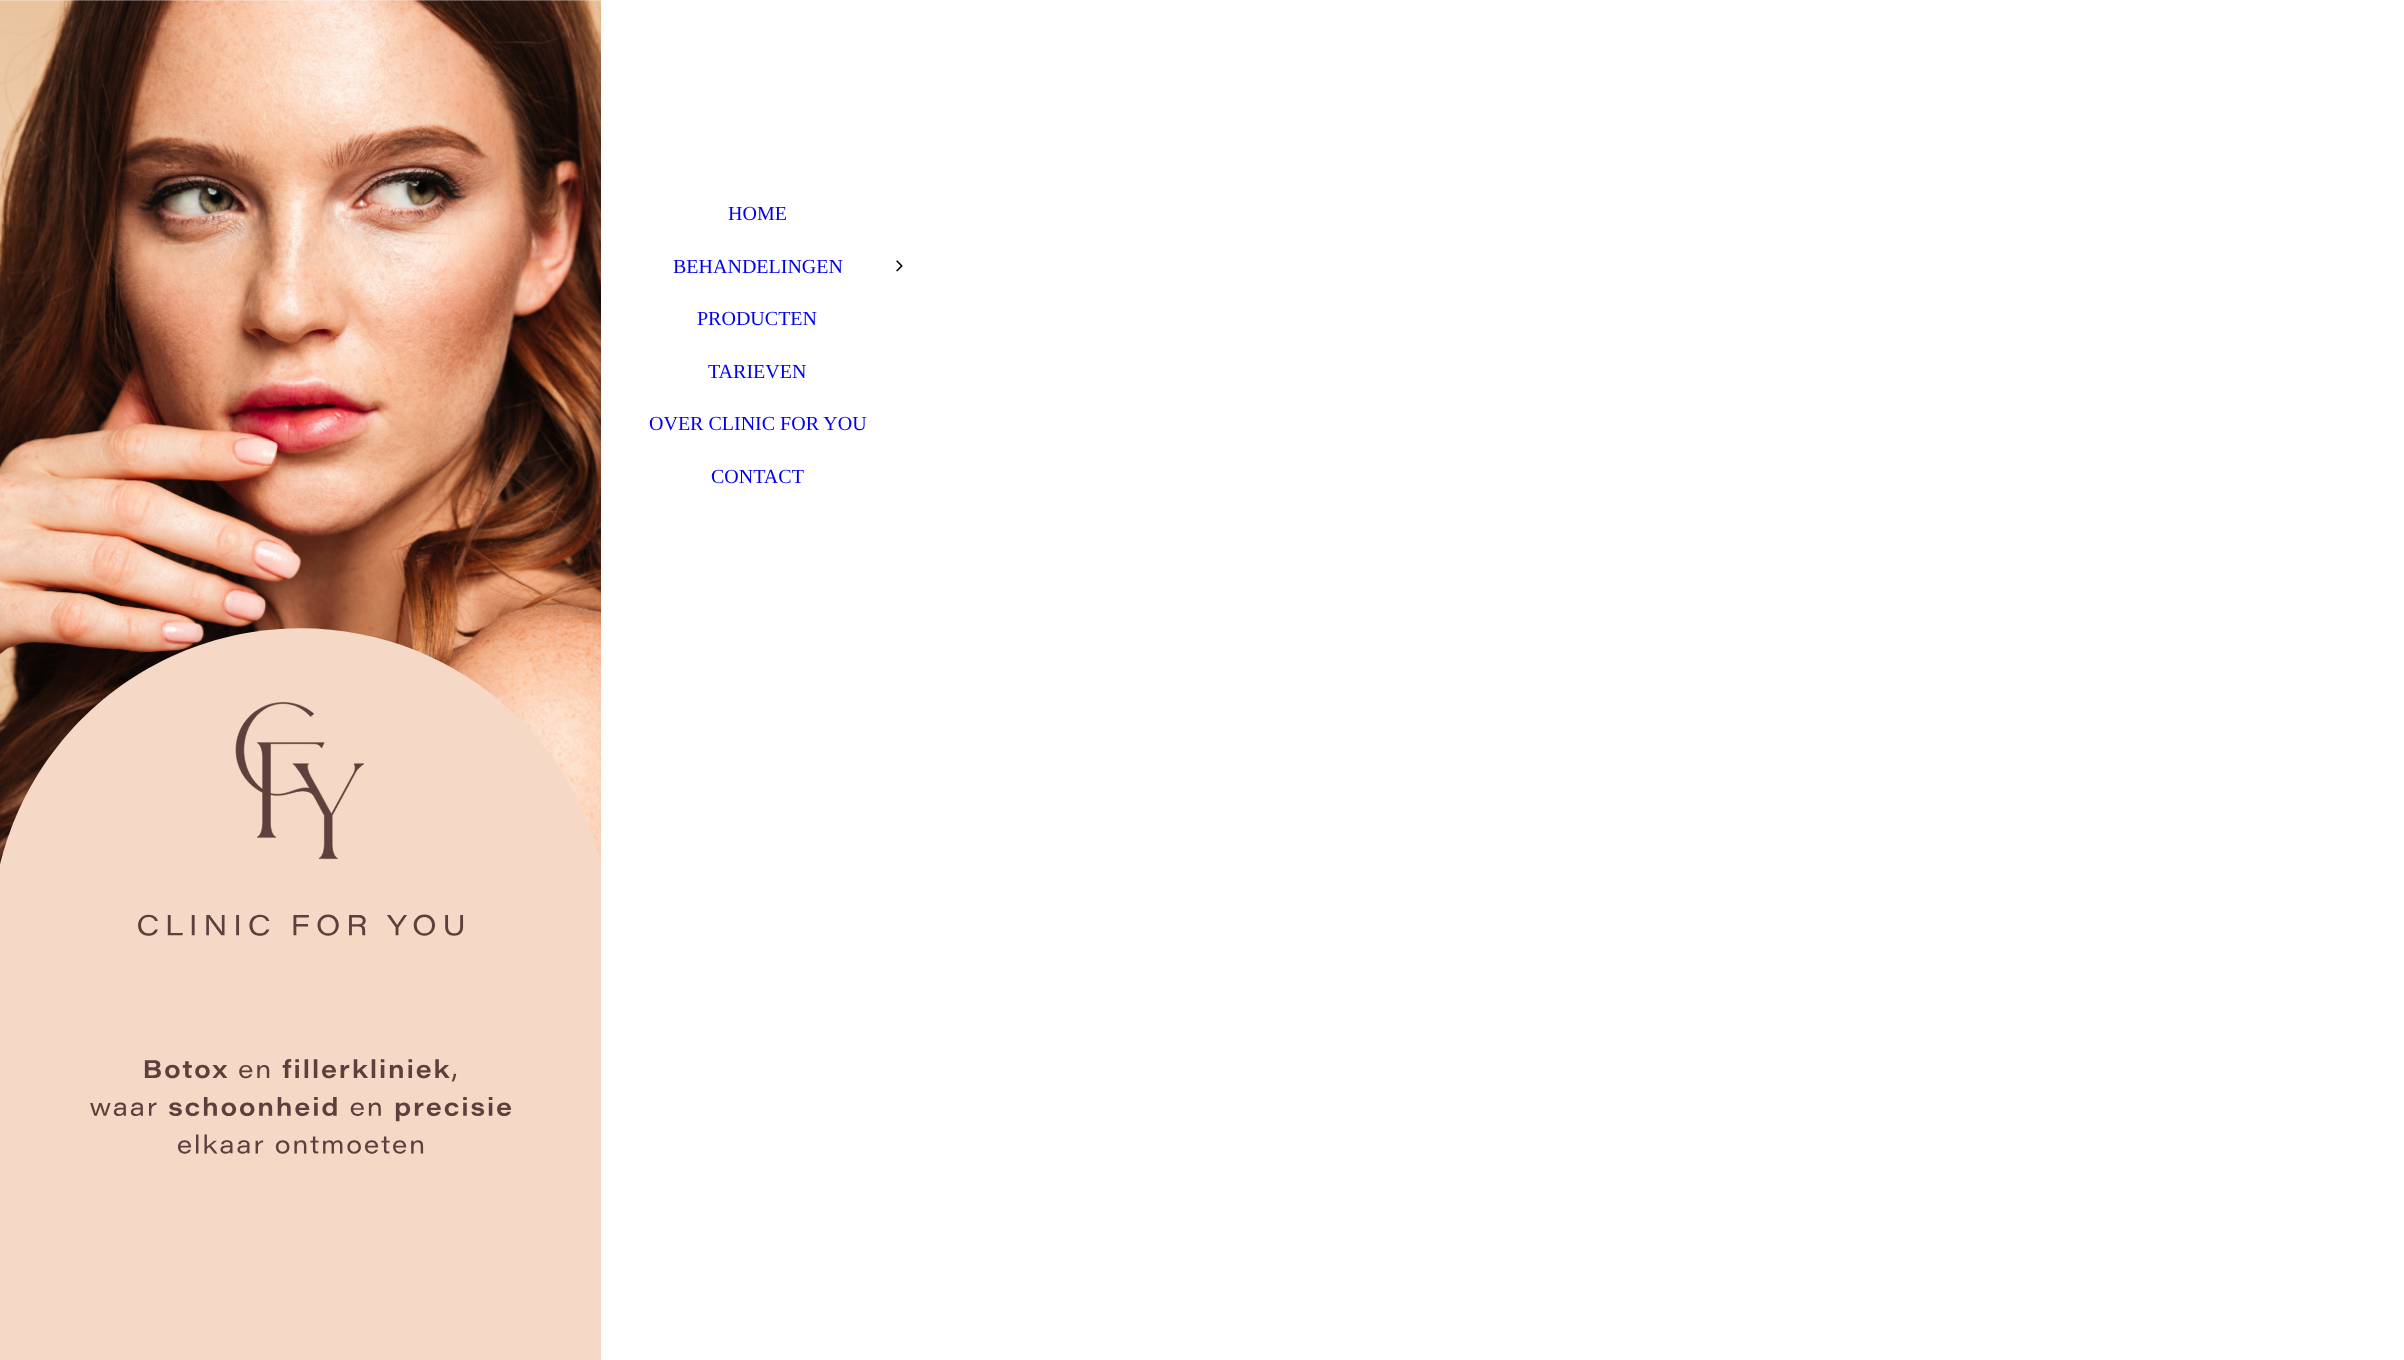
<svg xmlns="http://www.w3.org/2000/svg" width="2404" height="1360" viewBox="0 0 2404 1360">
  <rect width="100%" height="100%" fill="#ffffff"/>
  <image x="0" y="0" width="601" height="1360" href="img1.png"/>
  <text x="728" y="220" font-family="Liberation Serif" font-size="20" fill="#0000ee">HOME</text>
  <text x="673" y="273" font-family="Liberation Serif" font-size="20" fill="#0000ee">BEHANDELINGEN</text>
  <image x="896" y="260" width="7" height="12" href="img2.png"/>
  <text x="697" y="325" font-family="Liberation Serif" font-size="20" fill="#0000ee">PRODUCTEN</text>
  <text x="708" y="378" font-family="Liberation Serif" font-size="20" fill="#0000ee">TARIEVEN</text>
  <text x="649" y="430" font-family="Liberation Serif" font-size="20" fill="#0000ee">OVER CLINIC FOR YOU</text>
  <text x="711" y="483" font-family="Liberation Serif" font-size="20" fill="#0000ee">CONTACT</text>
</svg>
